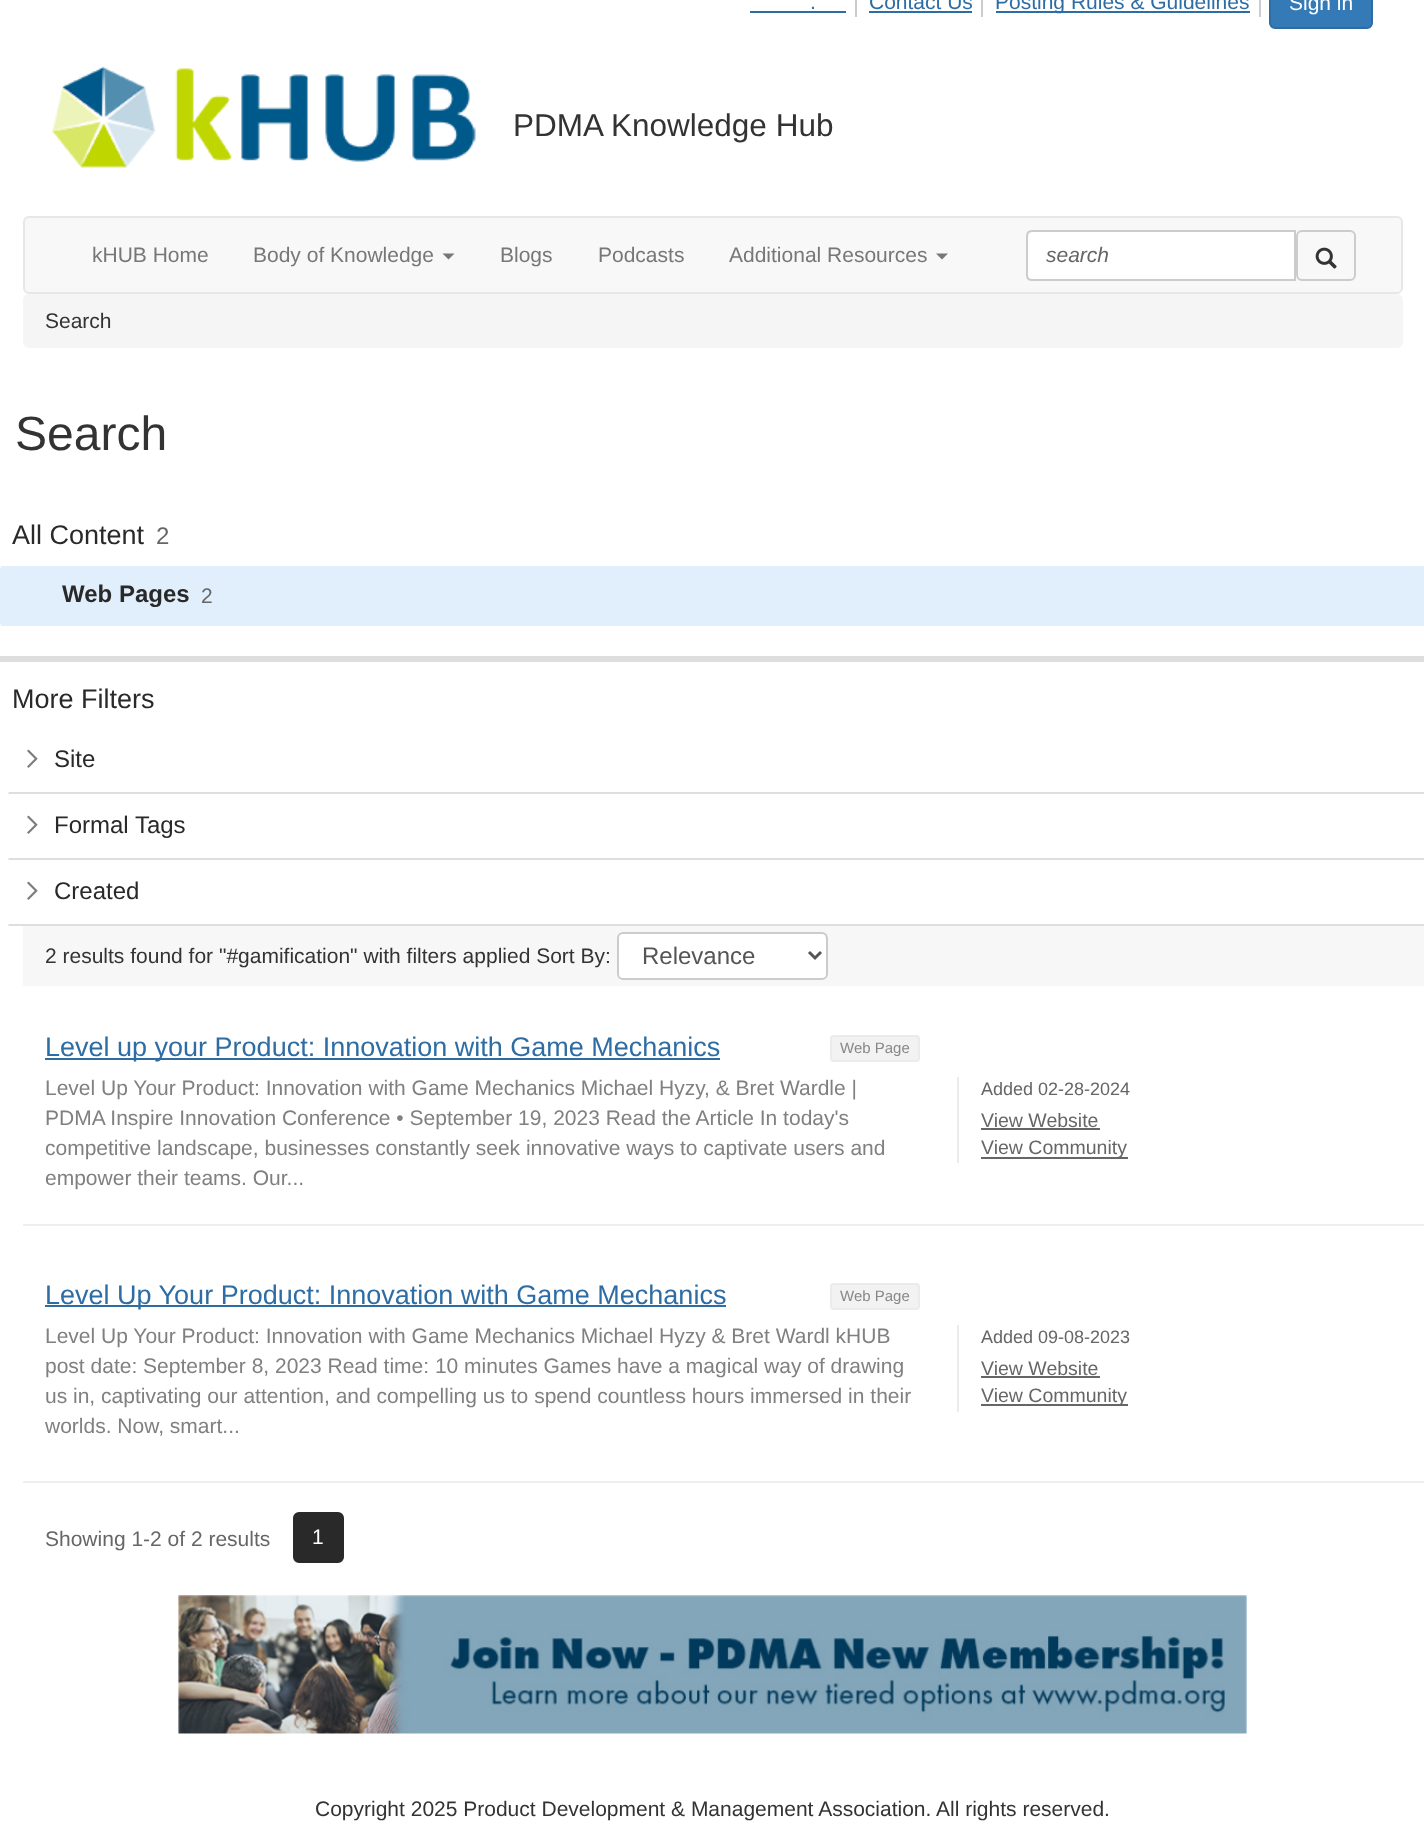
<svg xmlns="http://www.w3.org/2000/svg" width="1424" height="1840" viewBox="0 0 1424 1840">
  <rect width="100%" height="100%" fill="#ffffff"/>
  <rect x="855" y="0" width="2" height="17" fill="#cccccc"/>
  <text x="810" y="9" font-family="Liberation Sans" font-size="21" fill="#2e6da4">.</text>
  <rect x="750" y="11" width="96" height="2" fill="#2e6da4"/>
  <rect x="981" y="0" width="2" height="17" fill="#cccccc"/>
  <text x="869" y="9" font-family="Liberation Sans" font-size="21" fill="#2e6da4">Contact Us</text>
  <rect x="869" y="11" width="103" height="2" fill="#2e6da4"/>
  <rect x="1259" y="0" width="2" height="17" fill="#cccccc"/>
  <rect x="996" y="11" width="254" height="2" fill="#2e6da4"/>
  <text x="995" y="9" font-family="Liberation Sans" font-size="21" fill="#2e6da4">Posting Rules &amp; Guidelines</text>
  <rect x="1270" y="-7" width="102" height="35" rx="5" fill="#337ab7" stroke="#2e6da4" stroke-width="2"/>
  <text x="1289" y="10" font-family="Liberation Sans" font-size="21" fill="#ffffff">Sign in</text>
  <image x="52" y="66" width="424" height="102" href="img1.png"/>
  <text x="513" y="136" font-family="Liberation Sans" font-size="31.5" fill="#333333">PDMA Knowledge Hub</text>
  <rect x="24" y="217" width="1378" height="76" rx="5" fill="#f8f8f8" stroke="#e7e7e7" stroke-width="2"/>
  <text x="92" y="262" font-family="Liberation Sans" font-size="21" fill="#777777">kHUB Home</text>
  <text x="253" y="262" font-family="Liberation Sans" font-size="21" fill="#777777">Body of Knowledge</text>
  <path d="M442.5 253.5H454.5L448.5 259.5Z" fill="#777777"/>
  <text x="500" y="262" font-family="Liberation Sans" font-size="21" fill="#777777">Blogs</text>
  <text x="598" y="262" font-family="Liberation Sans" font-size="21" fill="#777777">Podcasts</text>
  <text x="729" y="262" font-family="Liberation Sans" font-size="21" fill="#777777">Additional Resources</text>
  <path d="M936 253.5H948L942 259.5Z" fill="#777777"/>
  <path d="M1032 230H1296V281H1032C1028.5 281 1026 278.5 1026 275V236C1026 232.5 1028.5 230 1032 230Z" fill="#ffffff"/>
  <path d="M1032 232H1294V279H1295V231H1033C1030 231 1028 234 1028 237C1028 235 1030 232 1032 232Z" fill="#ececec"/>
  <path d="M1032 231H1295V280H1032C1029 280 1027 278 1027 275V236C1027 233 1029 231 1032 231Z" fill="none" stroke="#cccccc" stroke-width="2"/>
  <text x="1046" y="262" font-family="Liberation Sans" font-size="21" font-style="italic" fill="#666666">search</text>
  <rect x="1297" y="231" width="58" height="49" rx="5" fill="none" stroke="#cccccc" stroke-width="2"/>
  <image x="1315" y="247" width="22" height="22" href="img2.png"/>
  <rect x="23" y="294" width="1380" height="54" rx="6" fill="#f5f5f5"/>
  <text x="45" y="328" font-family="Liberation Sans" font-size="21" fill="#333333">Search</text>
  <text x="15" y="450" font-family="Liberation Sans" font-size="48" fill="#333333">Search</text>
  <text x="12" y="544" font-family="Liberation Sans" font-size="27" fill="#292929">All Content</text>
  <text x="156" y="544" font-family="Liberation Sans" font-size="24" fill="#666666">2</text>
  <rect x="0" y="566" width="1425" height="60" rx="3" fill="#e1eefb"/>
  <text x="62" y="602" font-family="Liberation Sans" font-size="24" font-weight="bold" fill="#292929">Web Pages</text>
  <text x="201" y="603" font-family="Liberation Sans" font-size="21" fill="#666666">2</text>
  <rect x="0" y="656" width="1424" height="6" fill="#dededf"/>
  <text x="12" y="708" font-family="Liberation Sans" font-size="27" fill="#292929">More Filters</text>
  <path d="M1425 794H8L9 792H1424Z" fill="#dededf"/>
  <image x="27" y="749" width="11" height="19" href="img3.png"/>
  <text x="54" y="767" font-family="Liberation Sans" font-size="24" fill="#292929">Site</text>
  <path d="M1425 860H8L9 858H1424Z" fill="#dededf"/>
  <image x="27" y="815" width="11" height="19" href="img3.png"/>
  <text x="54" y="833" font-family="Liberation Sans" font-size="24" fill="#292929">Formal Tags</text>
  <path d="M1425 926H8L9 924H1424Z" fill="#dededf"/>
  <image x="27" y="881" width="11" height="19" href="img3.png"/>
  <text x="54" y="899" font-family="Liberation Sans" font-size="24" fill="#292929">Created</text>
  <rect x="23" y="926" width="1401" height="60" fill="#f7f7f7"/>
  <text x="45" y="963" font-family="Liberation Sans" font-size="21" fill="#333333">2 results found for "#gamification" with filters applied Sort By:</text>
  <rect x="617" y="932" width="211" height="48" rx="6" fill="#ffffff"/>
  <path d="M622 934H822C828 934 826 949 826 951V976C827 975 827 974 827 973V938C827 935 825 933 822 933H623C620 933 618 935 618 938V939C618 937 620 934 622 934Z" fill="#ececec"/>
  <rect x="618" y="933" width="209" height="46" rx="5" fill="none" stroke="#cccccc" stroke-width="2"/>
  <path d="M809 952L815 958L821 952" fill="none" stroke="#555555" stroke-width="3"/>
  <text x="642" y="964" font-family="Liberation Sans" font-size="24" fill="#555555">Relevance</text>
  <rect x="45" y="1058" width="675" height="2" fill="#2e6da4"/>
  <text x="45" y="1056" font-family="Liberation Sans" font-size="27" fill="#2e6da4">Level up your Product: Innovation with Game Mechanics</text>
  <rect x="831" y="1036" width="88" height="25" rx="3" fill="#f2f2f2" stroke="#ebebeb" stroke-width="2"/>
  <text x="840" y="1053" font-family="Liberation Sans" font-size="15" fill="#888888">Web Page</text>
  <text x="45" y="1095" font-family="Liberation Sans" font-size="21" fill="#808080">Level Up Your Product: Innovation with Game Mechanics Michael Hyzy, &amp; Bret Wardle |</text>
  <text x="45" y="1125" font-family="Liberation Sans" font-size="21" fill="#808080">PDMA Inspire Innovation Conference • September 19, 2023 Read the Article In today's</text>
  <text x="45" y="1155" font-family="Liberation Sans" font-size="21" fill="#808080">competitive landscape, businesses constantly seek innovative ways to captivate users and</text>
  <text x="45" y="1185" font-family="Liberation Sans" font-size="21" fill="#808080">empower their teams. Our...</text>
  <rect x="957" y="1077" width="2" height="86" fill="#ebebeb"/>
  <text x="981" y="1095" font-family="Liberation Sans" font-size="18" fill="#666666">Added 02-28-2024</text>
  <text x="981" y="1127" font-family="Liberation Sans" font-size="19.5" fill="#666666">View Website</text>
  <rect x="981" y="1128" width="119" height="2" fill="#666666"/>
  <rect x="981" y="1157" width="147" height="2" fill="#666666"/>
  <text x="981" y="1154" font-family="Liberation Sans" font-size="19.5" fill="#666666">View Community</text>
  <rect x="23" y="1224" width="1401" height="2" fill="#eeeeee"/>
  <rect x="45" y="1305" width="681" height="2" fill="#2e6da4"/>
  <text x="45" y="1304" font-family="Liberation Sans" font-size="27" fill="#2e6da4">Level Up Your Product: Innovation with Game Mechanics</text>
  <rect x="831" y="1284" width="88" height="25" rx="3" fill="#f2f2f2" stroke="#ebebeb" stroke-width="2"/>
  <text x="840" y="1301" font-family="Liberation Sans" font-size="15" fill="#888888">Web Page</text>
  <text x="45" y="1343" font-family="Liberation Sans" font-size="21" fill="#808080">Level Up Your Product: Innovation with Game Mechanics Michael Hyzy &amp; Bret Wardl kHUB</text>
  <text x="45" y="1373" font-family="Liberation Sans" font-size="21" fill="#808080">post date: September 8, 2023 Read time: 10 minutes Games have a magical way of drawing</text>
  <text x="45" y="1403" font-family="Liberation Sans" font-size="21" fill="#808080">us in, captivating our attention, and compelling us to spend countless hours immersed in their</text>
  <text x="45" y="1433" font-family="Liberation Sans" font-size="21" fill="#808080">worlds. Now, smart...</text>
  <rect x="957" y="1325" width="2" height="87" fill="#ebebeb"/>
  <text x="981" y="1343" font-family="Liberation Sans" font-size="18" fill="#666666">Added 09-08-2023</text>
  <text x="981" y="1375" font-family="Liberation Sans" font-size="19.5" fill="#666666">View Website</text>
  <rect x="981" y="1376" width="119" height="2" fill="#666666"/>
  <rect x="981" y="1404" width="147" height="2" fill="#666666"/>
  <text x="981" y="1402" font-family="Liberation Sans" font-size="19.5" fill="#666666">View Community</text>
  <rect x="23" y="1481" width="1401" height="2" fill="#eeeeee"/>
  <text x="45" y="1546" font-family="Liberation Sans" font-size="21" fill="#666666">Showing 1-2 of 2 results</text>
  <rect x="294" y="1513" width="49" height="49" rx="5" fill="#292929" stroke="#292929" stroke-width="2"/>
  <text x="312" y="1544" font-family="Liberation Sans" font-size="21" fill="#ffffff">1</text>
  <image x="178" y="1595" width="1069" height="139" href="img4.png"/>
  <text x="315" y="1816" font-family="Liberation Sans" font-size="21" fill="#333333">Copyright 2025 Product Development &amp; Management Association. All rights reserved.</text>
</svg>
